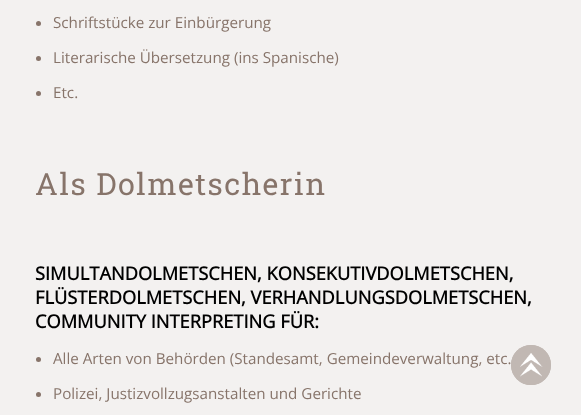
<svg xmlns="http://www.w3.org/2000/svg" width="581" height="415" viewBox="0 0 581 415">
  <rect width="100%" height="100%" fill="#f3f1f0"/>
  <circle cx="38.5" cy="23.5" r="2.5" fill="#87746a"/>
  <text x="53" y="28" font-family="Open Sans" font-size="15.2" fill="#87746a">Schriftstücke zur Einbürgerung</text>
  <circle cx="38.5" cy="58.5" r="2.5" fill="#87746a"/>
  <text x="53" y="63" font-family="Open Sans" font-size="15.2" fill="#87746a">Literarische Übersetzung (ins Spanische)</text>
  <circle cx="38.5" cy="93.5" r="2.5" fill="#87746a"/>
  <text x="53" y="98" font-family="Open Sans" font-size="15.2" fill="#87746a">Etc.</text>
  <text x="35" y="195" font-family="Roboto Slab" font-size="30.5" letter-spacing="1.5" fill="#87746a">Als Dolmetscherin</text>
  <text x="35" y="280" font-family="Open Sans" font-size="18.25" font-weight="bold" fill="#000000">SIMULTANDOLMETSCHEN, KONSEKUTIVDOLMETSCHEN,</text>
  <text x="35" y="304" font-family="Open Sans" font-size="18.25" font-weight="bold" fill="#000000">FLÜSTERDOLMETSCHEN, VERHANDLUNGSDOLMETSCHEN,</text>
  <text x="35" y="328" font-family="Open Sans" font-size="18.25" font-weight="bold" fill="#000000">COMMUNITY INTERPRETING FÜR:</text>
  <circle cx="38.5" cy="359.5" r="2.5" fill="#87746a"/>
  <text x="53" y="364" font-family="Open Sans" font-size="15.2" fill="#87746a">Alle Arten von Behörden (Standesamt, Gemeindeverwaltung, etc.</text>
  <circle cx="38.5" cy="394.5" r="2.5" fill="#87746a"/>
  <text x="53" y="399" font-family="Open Sans" font-size="15.2" fill="#87746a">Polizei, Justizvollzugsanstalten und Gerichte</text>
  <circle cx="531" cy="365" r="20" fill="#c1b8b3"/>
  <image x="520" y="353" width="23" height="24" href="img1.png"/>
  <circle cx="531" cy="365" r="18" fill="none" stroke="#c1b8b3" stroke-width="4"/>
</svg>
